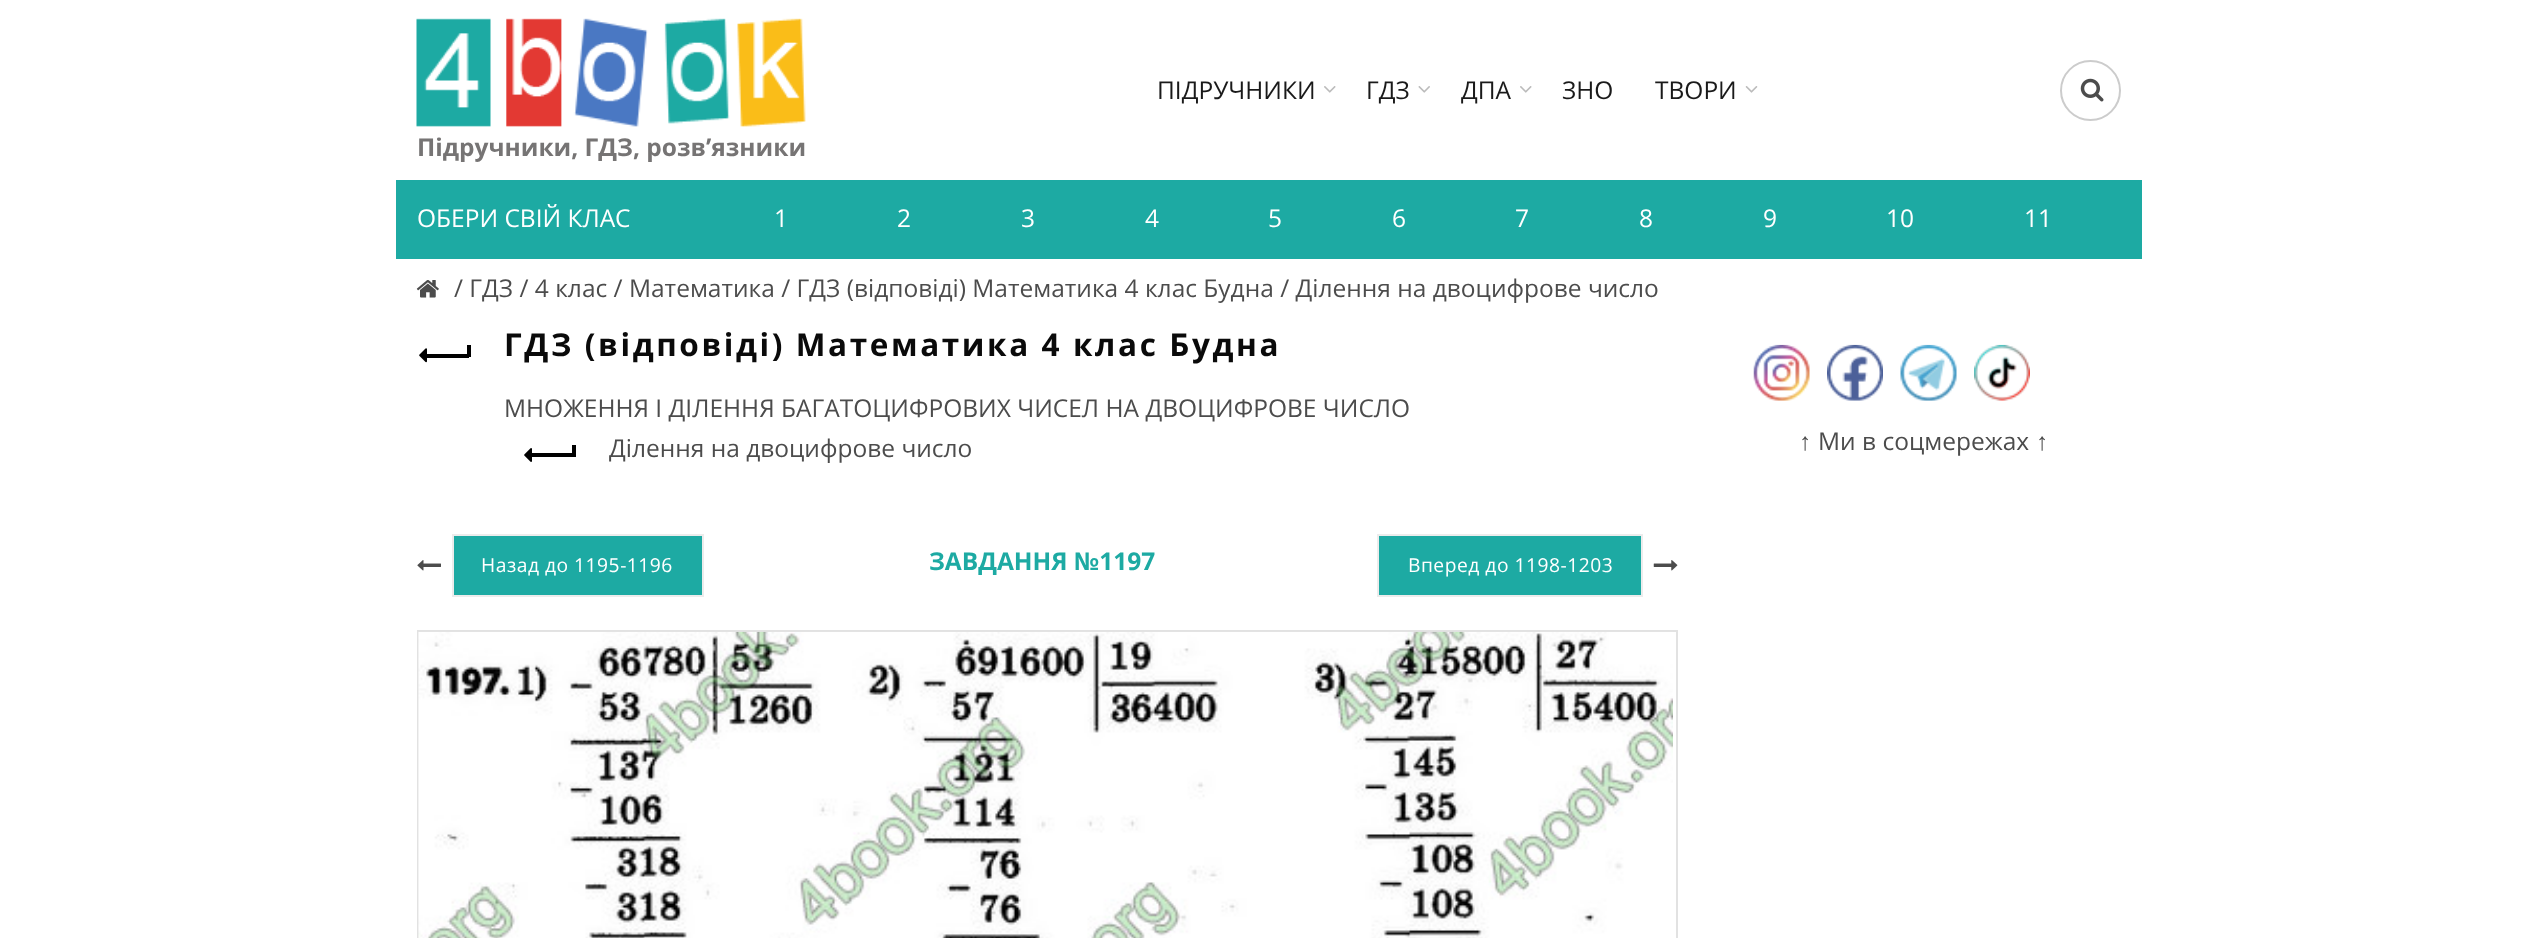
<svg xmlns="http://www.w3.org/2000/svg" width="2537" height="938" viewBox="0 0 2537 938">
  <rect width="100%" height="100%" fill="#ffffff"/>
  <text x="1157" y="99" font-family="Open Sans" font-size="24.5" fill="#1a1a1a">ПІДРУЧНИКИ</text>
  <image x="1324" y="86" width="12" height="7" href="img1.png"/>
  <text x="1366" y="99" font-family="Open Sans" font-size="24.5" fill="#1a1a1a">ГДЗ</text>
  <image x="1418" y="86" width="12" height="7" href="img2.png"/>
  <text x="1461" y="99" font-family="Open Sans" font-size="24.5" fill="#1a1a1a">ДПА</text>
  <image x="1520" y="86" width="12" height="7" href="img1.png"/>
  <text x="1562" y="99" font-family="Open Sans" font-size="24.5" fill="#1a1a1a">ЗНО</text>
  <text x="1655" y="99" font-family="Open Sans" font-size="24.5" fill="#1a1a1a">ТВОРИ</text>
  <image x="1745" y="86" width="13" height="7" href="img3.png"/>
  <image x="2080" y="78" width="24" height="24" href="img4.png"/>
  <circle cx="2090.5" cy="90.5" r="29.5" fill="none" stroke="#cccccc" stroke-width="2"/>
  <image x="416" y="18" width="390" height="109" href="img5.png"/>
  <text x="417" y="156" font-family="Open Sans" font-size="24.5" font-weight="bold" fill="#767474">Підручники, ГДЗ, розв’язники</text>
  <rect x="396" y="180" width="1746" height="79" fill="#1daaa3"/>
  <text x="417" y="227" font-family="Open Sans" font-size="24.5" fill="#ffffff">ОБЕРИ СВІЙ КЛАС</text>
  <text x="774" y="227" font-family="Open Sans" font-size="24.5" fill="#ffffff">1</text>
  <text x="897" y="227" font-family="Open Sans" font-size="24.5" fill="#ffffff">2</text>
  <text x="1021" y="227" font-family="Open Sans" font-size="24.5" fill="#ffffff">3</text>
  <text x="1145" y="227" font-family="Open Sans" font-size="24.5" fill="#ffffff">4</text>
  <text x="1268" y="227" font-family="Open Sans" font-size="24.5" fill="#ffffff">5</text>
  <text x="1392" y="227" font-family="Open Sans" font-size="24.5" fill="#ffffff">6</text>
  <text x="1515" y="227" font-family="Open Sans" font-size="24.5" fill="#ffffff">7</text>
  <text x="1639" y="227" font-family="Open Sans" font-size="24.5" fill="#ffffff">8</text>
  <text x="1763" y="227" font-family="Open Sans" font-size="24.5" fill="#ffffff">9</text>
  <text x="1886" y="227" font-family="Open Sans" font-size="24.5" fill="#ffffff">10</text>
  <text x="2024" y="227" font-family="Open Sans" font-size="24.5" fill="#ffffff">11</text>
  <image x="416" y="280" width="23" height="18" href="img6.png"/>
  <text x="454" y="297" font-family="Open Sans" font-size="24.5" fill="#4c4c4c">/ ГДЗ / 4 клас / Математика / ГДЗ (відповіді) Математика 4 клас Будна / Ділення на двоцифрове число</text>
  <rect x="425" y="354" width="44" height="4" fill="#000000"/>
  <image x="419" y="348" width="8" height="15" href="img7.png"/>
  <rect x="467" y="345" width="4" height="12" fill="#000000"/>
  <text x="504" y="356" font-family="Open Sans" font-size="31.5" font-weight="bold" letter-spacing="2.6" fill="#0a0a0a">ГДЗ (відповіді) Математика 4 клас Будна</text>
  <text x="504" y="417" font-family="Open Sans" font-size="24.5" fill="#4c4c4c">МНОЖЕННЯ І ДІЛЕННЯ БАГАТОЦИФРОВИХ ЧИСЕЛ НА ДВОЦИФРОВЕ ЧИСЛО</text>
  <rect x="530" y="453" width="44" height="4" fill="#000000"/>
  <image x="524" y="448" width="8" height="14" href="img8.png"/>
  <rect x="572" y="445" width="4" height="12" fill="#000000"/>
  <text x="609" y="457" font-family="Open Sans" font-size="24.5" fill="#4c4c4c">Ділення на двоцифрове число</text>
  <image x="417" y="560" width="24" height="11" href="img9.png"/>
  <rect x="453" y="535" width="250" height="61" fill="#1daaa3" stroke="#ececec" stroke-width="2"/>
  <text x="481" y="572" font-family="Open Sans" font-size="19.25" letter-spacing="0.5" fill="#ffffff">Назад до 1195-1196</text>
  <text x="929" y="570" font-family="Open Sans" font-size="24.5" font-weight="bold" fill="#1daaa3">ЗАВДАННЯ №1197</text>
  <rect x="1378" y="535" width="264" height="61" fill="#1daaa3" stroke="#ececec" stroke-width="2"/>
  <text x="1408" y="572" font-family="Open Sans" font-size="19.25" letter-spacing="0.5" fill="#ffffff">Вперед до 1198-1203</text>
  <image x="1653" y="560" width="25" height="11" href="img10.png"/>
  <rect x="418" y="631" width="1259" height="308" fill="none" stroke="#e2e2e2" stroke-width="2"/>
  <image x="418" y="631" width="1255" height="307" href="img11.png"/>
  <image x="1753" y="344" width="57" height="57" href="img12.png"/>
  <image x="1827" y="344" width="56" height="57" href="img13.png"/>
  <image x="1900" y="344" width="57" height="57" href="img14.png"/>
  <image x="1974" y="344" width="56" height="57" href="img15.png"/>
  <text x="1799" y="450" font-family="Liberation Sans" font-size="24.5" fill="#4c4c4c">↑</text>
  <text x="1818" y="450" font-family="Open Sans" font-size="24.5" fill="#4c4c4c">Ми в соцмережах</text>
  <text x="2036" y="450" font-family="Liberation Sans" font-size="24.5" fill="#4c4c4c">↑</text>
</svg>
